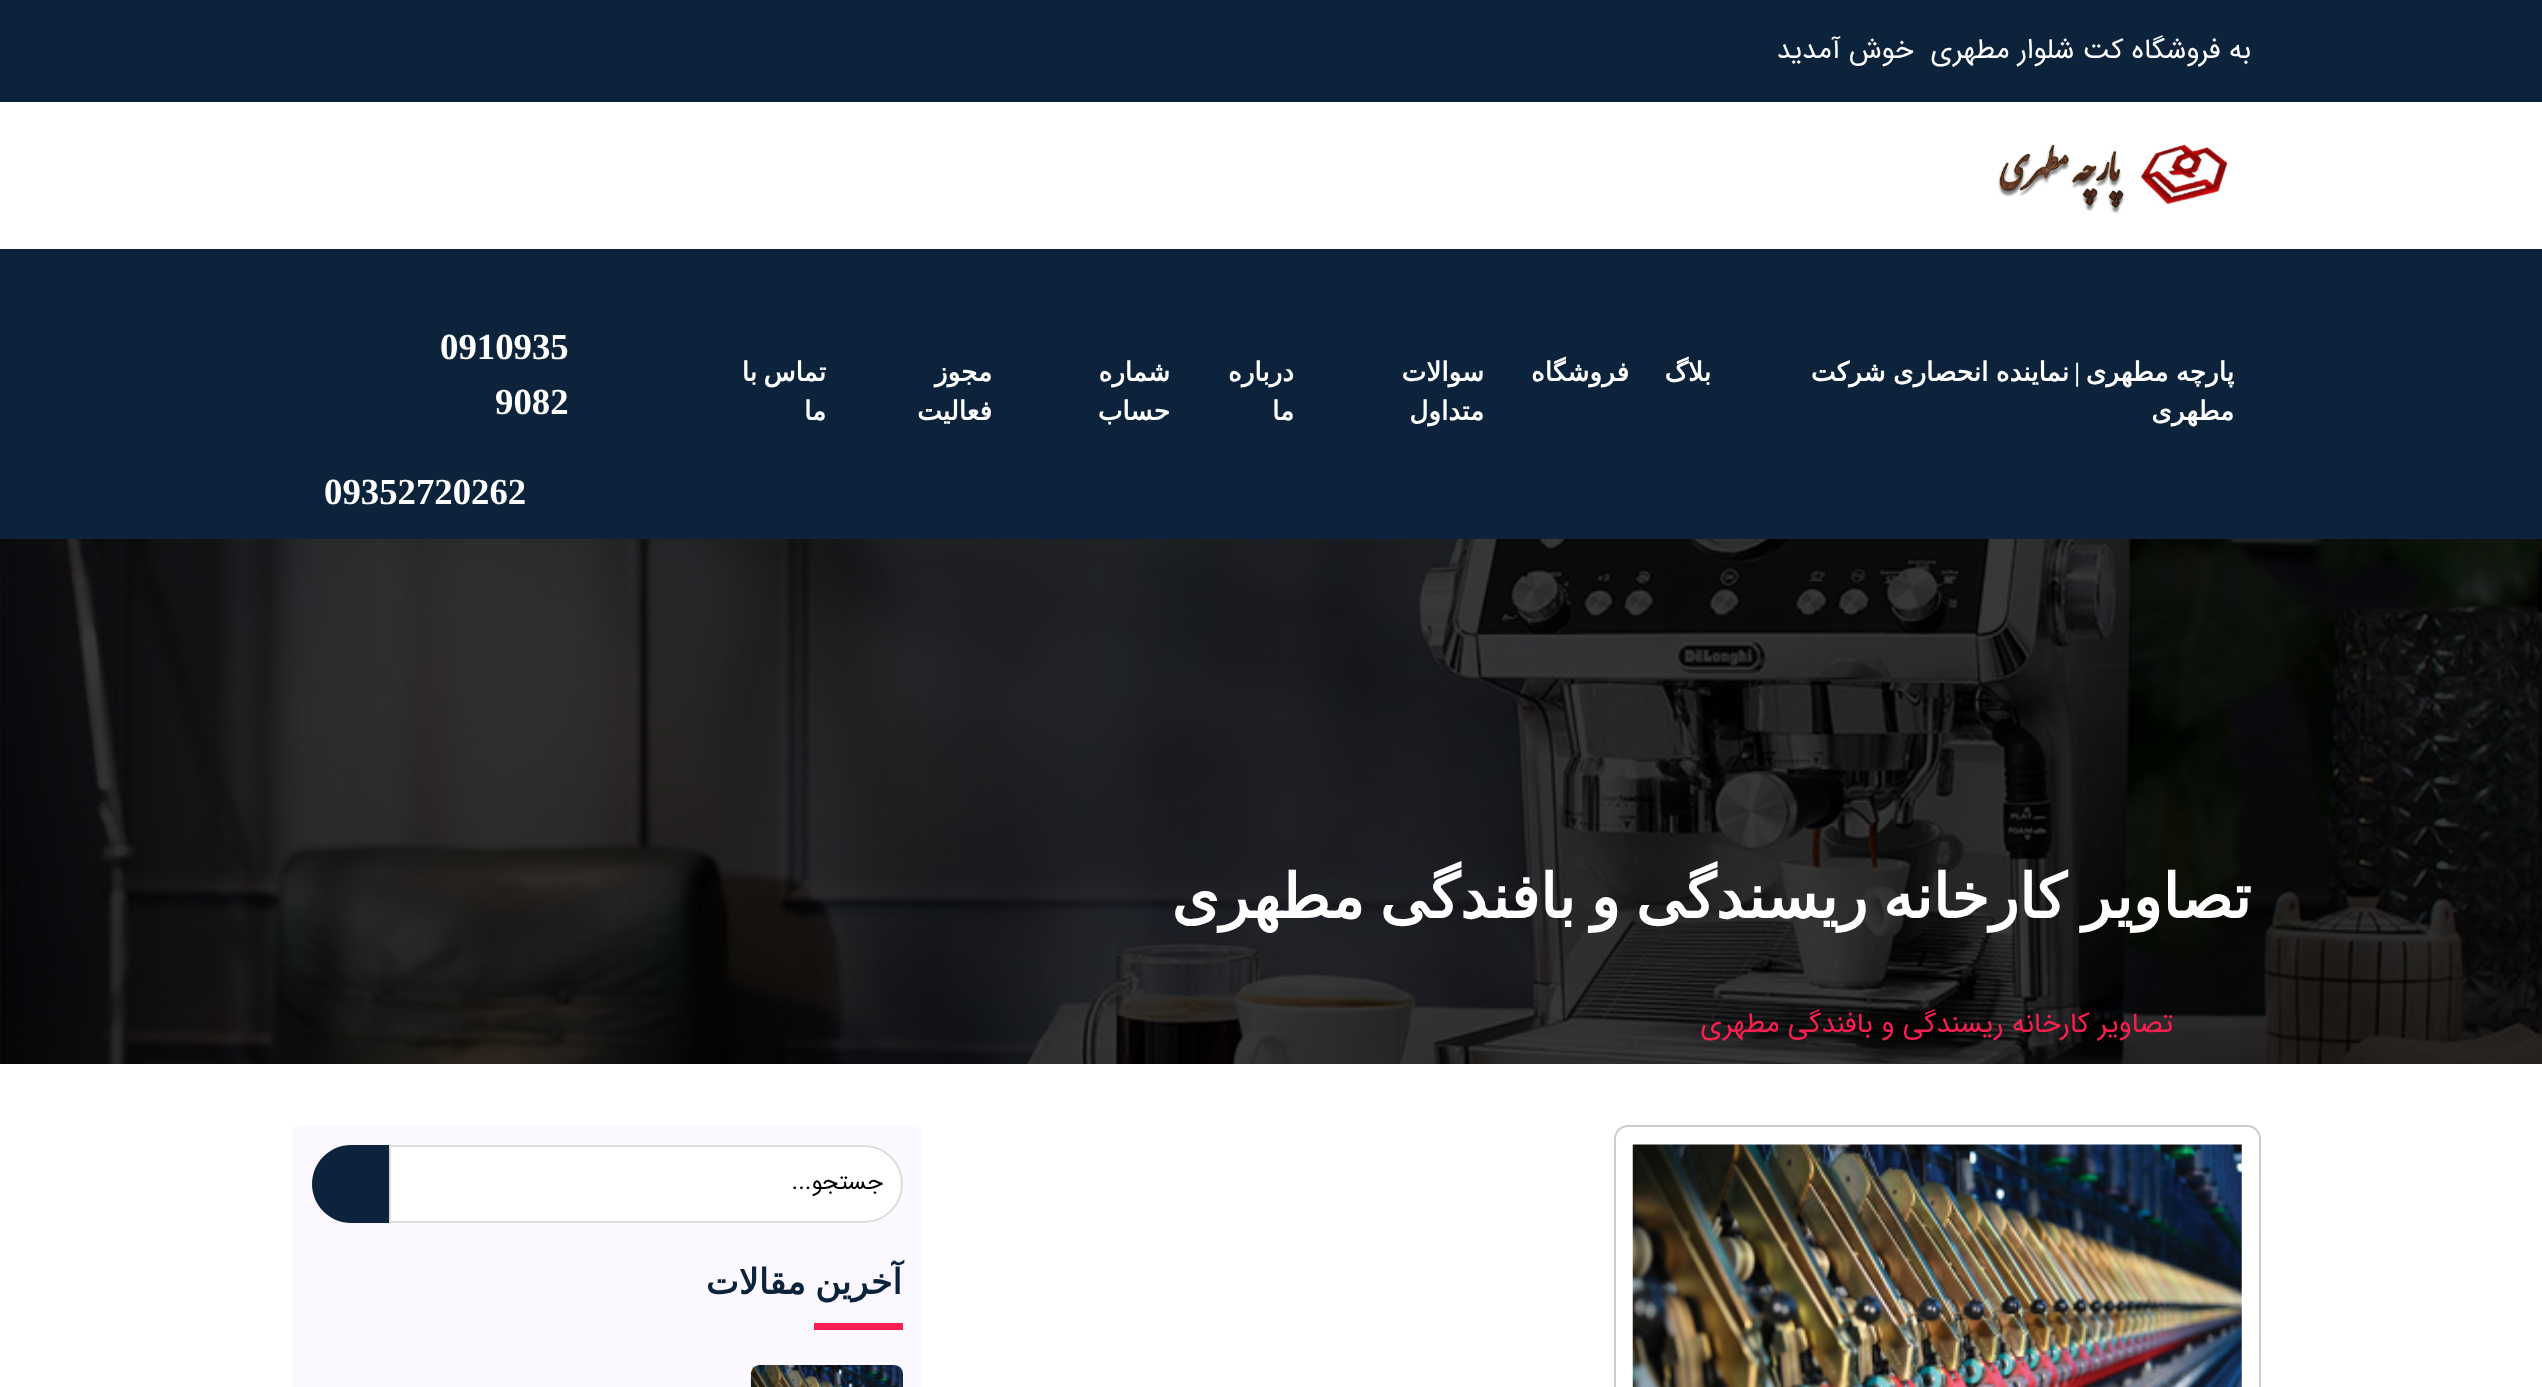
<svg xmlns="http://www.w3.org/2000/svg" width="2542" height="1387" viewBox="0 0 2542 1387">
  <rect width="100%" height="100%" fill="#ffffff"/>
  <rect x="0" y="0" width="2542" height="102" fill="#0d233b"/>
  <text x="2251" y="58" font-family="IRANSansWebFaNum" font-size="28" direction="rtl" fill="#ffffff" xml:space="preserve">به فروشگاه کت شلوار مطهری  خوش آمدید</text>
  <image x="1998" y="144" width="230" height="70" href="img1.png"/>
  <rect x="0" y="249" width="2542" height="290" fill="#0d233b"/>
  <text x="2234" y="381" word-spacing="-1" font-family="DejaVu Sans" font-size="26.25" font-weight="bold" direction="rtl" fill="#ffffff">پارچه مطهری</text>
  <text x="2080" y="381" font-family="Liberation Serif" font-size="26.25" font-weight="bold" direction="rtl" fill="#ffffff">|</text>
  <text x="2069" y="381" word-spacing="-1" font-family="DejaVu Sans" font-size="26.25" font-weight="bold" direction="rtl" fill="#ffffff">نماینده انحصاری شرکت</text>
  <text x="2234" y="420" font-family="DejaVu Sans" font-size="26.25" font-weight="bold" direction="rtl" fill="#ffffff">مطهری</text>
  <text x="1711" y="381" font-family="DejaVu Sans" font-size="26.25" font-weight="bold" direction="rtl" fill="#ffffff">بلاگ</text>
  <text x="1629" y="381" font-family="DejaVu Sans" font-size="26.25" font-weight="bold" direction="rtl" fill="#ffffff">فروشگاه</text>
  <text x="1484" y="381" font-family="DejaVu Sans" font-size="26.25" font-weight="bold" direction="rtl" fill="#ffffff">سوالات</text>
  <text x="1484" y="420" font-family="DejaVu Sans" font-size="26.25" font-weight="bold" direction="rtl" fill="#ffffff">متداول</text>
  <text x="1294" y="381" font-family="DejaVu Sans" font-size="26.25" font-weight="bold" direction="rtl" fill="#ffffff">درباره</text>
  <text x="1294" y="420" font-family="DejaVu Sans" font-size="26.25" font-weight="bold" direction="rtl" fill="#ffffff">ما</text>
  <text x="1170" y="381" font-family="DejaVu Sans" font-size="26.25" font-weight="bold" direction="rtl" fill="#ffffff">شماره</text>
  <text x="1170" y="420" font-family="DejaVu Sans" font-size="26.25" font-weight="bold" direction="rtl" fill="#ffffff">حساب</text>
  <text x="992" y="381" font-family="DejaVu Sans" font-size="26.25" font-weight="bold" direction="rtl" fill="#ffffff">مجوز</text>
  <text x="992" y="420" font-family="DejaVu Sans" font-size="26.25" font-weight="bold" direction="rtl" fill="#ffffff">فعالیت</text>
  <text x="826" y="381" word-spacing="-2" font-family="DejaVu Sans" font-size="26.25" font-weight="bold" direction="rtl" fill="#ffffff">تماس با</text>
  <text x="826" y="420" font-family="DejaVu Sans" font-size="26.25" font-weight="bold" direction="rtl" fill="#ffffff">ما</text>
  <text x="440" y="359" font-family="Liberation Serif" font-size="36.75" font-weight="bold" fill="#ffffff">0910935</text>
  <text x="495" y="414" font-family="Liberation Serif" font-size="36.75" font-weight="bold" fill="#ffffff">9082</text>
  <text x="324" y="504" font-family="Liberation Serif" font-size="36.75" font-weight="bold" fill="#ffffff">09352720262</text>
  <image x="0" y="539" width="2542" height="525" href="img2.png"/>
  <text x="2251" y="918" word-spacing="-4.25" font-family="DejaVu Sans" font-size="61.25" font-weight="bold" direction="rtl" fill="#ffffff">تصاویر کارخانه ریسندگی و بافندگی مطهری</text>
  <text x="2173" y="1032" font-family="IRANSansWebFaNum" font-size="28" direction="rtl" fill="#fb1f50">تصاویر کارخانه ریسندگی و بافندگی مطهری</text>
  <rect x="1615" y="1126" width="645" height="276" rx="13" fill="none" stroke="#cdcdcd" stroke-width="2"/>
  <image x="1632" y="1144" width="610" height="243" href="img3.png"/>
  <rect x="292" y="1125" width="630" height="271" rx="9" fill="#fbf9ff"/>
  <path d="M389 1145H864C885.5 1145 903 1162.5 903 1184C903 1205.5 885.5 1223 864 1223H389Z" fill="#ffffff"/>
  <path d="M390 1146H864C885 1146 902 1163 902 1184C902 1205 885 1222 864 1222H390Z" fill="none" stroke="#a7a7a7" stroke-opacity="0.4" stroke-width="2"/>
  <text x="883" y="1189" font-family="IRANSansWebFaNum" font-size="23.5" direction="rtl" fill="#000000">جستجو...</text>
  <path d="M351 1145H389V1223H351C329.5 1223 312 1205.5 312 1184C312 1162.5 329.5 1145 351 1145Z" fill="#0d233b"/>
  <text x="902" y="1294" word-spacing="-2" font-family="DejaVu Sans" font-size="35" font-weight="bold" direction="rtl" fill="#0d233b">آخرین مقالات</text>
  <rect x="814" y="1323" width="89" height="7" fill="#fb1f50"/>
  <image x="750" y="1365" width="153" height="22" href="img4.png"/>
</svg>
